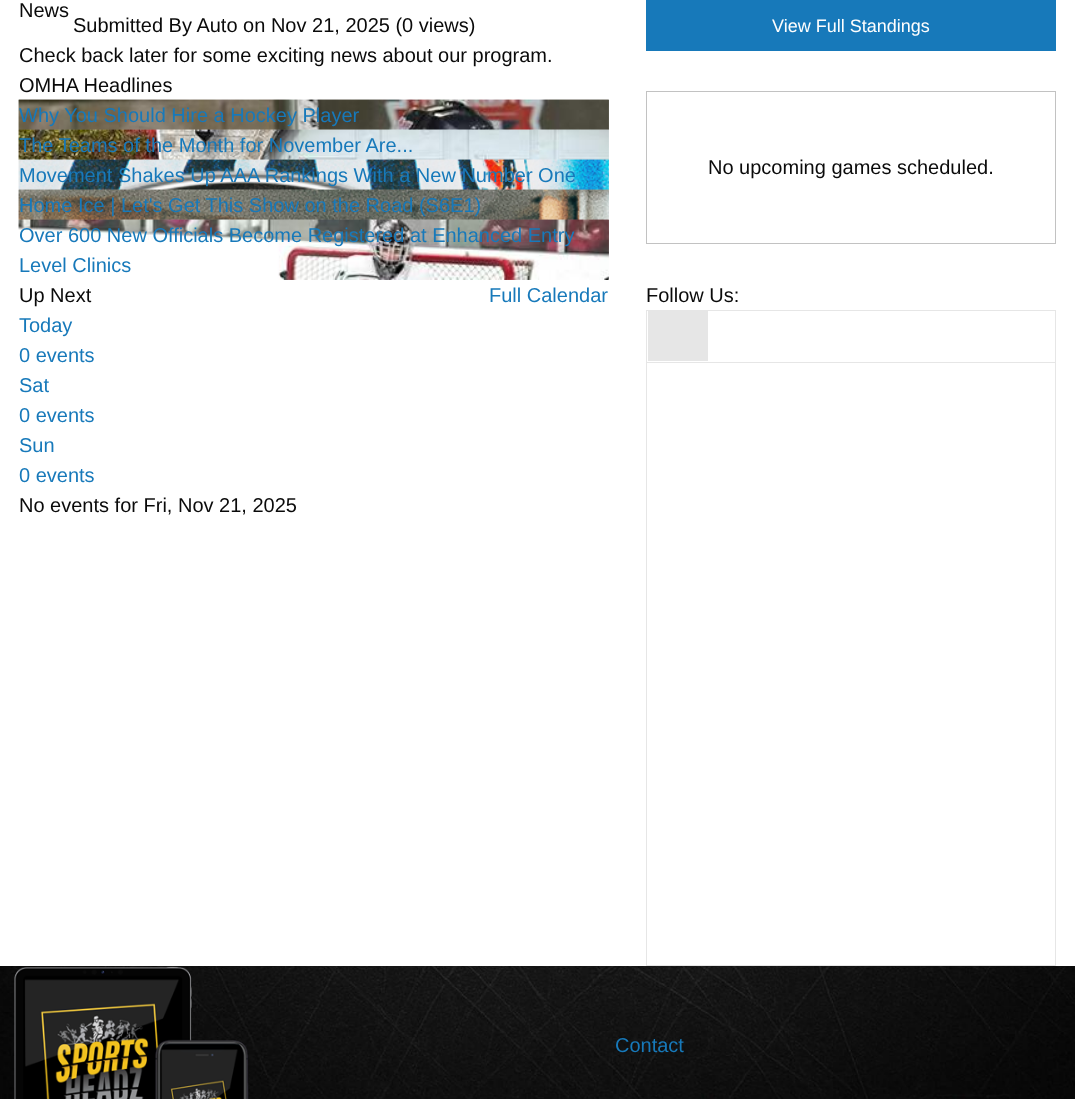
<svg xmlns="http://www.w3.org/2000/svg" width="1075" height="1099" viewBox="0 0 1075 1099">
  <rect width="100%" height="100%" fill="#ffffff"/>
  <image x="0" y="966" width="1075" height="133" href="img1.png"/>
  <text x="19" y="17" font-family="Liberation Sans" font-size="20" fill="#0a0a0a">News</text>
  <text x="73" y="32" font-family="Liberation Sans" font-size="20" fill="#0a0a0a">Submitted By Auto on Nov 21, 2025 (0 views)</text>
  <text x="19" y="62" font-family="Liberation Sans" font-size="20" fill="#0a0a0a">Check back later for some exciting news about our program.</text>
  <text x="19" y="92" font-family="Liberation Sans" font-size="20" fill="#0a0a0a">OMHA Headlines</text>
  <image x="18" y="99" width="591" height="31" href="img2.png"/>
  <image x="18" y="99" width="591" height="31" href="img3.png"/>
  <text x="19" y="122" font-family="Liberation Sans" font-size="20" fill="#1779ba">Why You Should Hire a Hockey Player</text>
  <image x="18" y="129" width="591" height="31" href="img4.png"/>
  <image x="18" y="129" width="591" height="31" href="img5.png"/>
  <text x="19" y="152" font-family="Liberation Sans" font-size="20" fill="#1779ba">The Teams of the Month for November Are...</text>
  <image x="18" y="159" width="591" height="31" href="img6.png"/>
  <image x="18" y="159" width="591" height="31" href="img7.png"/>
  <text x="19" y="182" font-family="Liberation Sans" font-size="20" fill="#1779ba">Movement Shakes Up AAA Rankings With a New Number One</text>
  <image x="18" y="189" width="591" height="31" href="img8.png"/>
  <image x="18" y="189" width="591" height="31" href="img9.png"/>
  <text x="19" y="212" font-family="Liberation Sans" font-size="20" fill="#1779ba">Home Ice | Let's Get This Show on the Road (S6E1)</text>
  <image x="18" y="219" width="591" height="61" href="img10.png"/>
  <image x="18" y="219" width="591" height="61" href="img11.png"/>
  <text x="19" y="242" font-family="Liberation Sans" font-size="20" fill="#1779ba">Over 600 New Officials Become Registered at Enhanced Entry</text>
  <text x="19" y="272" font-family="Liberation Sans" font-size="20" fill="#1779ba">Level Clinics</text>
  <rect x="646" y="0" width="410" height="51" fill="#1779ba"/>
  <text x="772" y="32" font-family="Liberation Sans" font-size="18" fill="#fefefe">View Full Standings</text>
  <rect x="646.5" y="91.5" width="409" height="152" fill="none" stroke="#c2c2c2"/>
  <text x="708" y="174" font-family="Liberation Sans" font-size="20" fill="#0a0a0a">No upcoming games scheduled.</text>
  <text x="19" y="302" font-family="Liberation Sans" font-size="20" fill="#0a0a0a">Up Next</text>
  <text x="489" y="302" font-family="Liberation Sans" font-size="20" fill="#1779ba">Full Calendar</text>
  <text x="19" y="332" font-family="Liberation Sans" font-size="20" fill="#1779ba">Today</text>
  <text x="19" y="362" font-family="Liberation Sans" font-size="20" fill="#1779ba">0 events</text>
  <text x="19" y="392" font-family="Liberation Sans" font-size="20" fill="#1779ba">Sat</text>
  <text x="19" y="422" font-family="Liberation Sans" font-size="20" fill="#1779ba">0 events</text>
  <text x="19" y="452" font-family="Liberation Sans" font-size="20" fill="#1779ba">Sun</text>
  <text x="19" y="482" font-family="Liberation Sans" font-size="20" fill="#1779ba">0 events</text>
  <text x="19" y="512" font-family="Liberation Sans" font-size="20" fill="#0a0a0a">No events for Fri, Nov 21, 2025</text>
  <text x="646" y="302" font-family="Liberation Sans" font-size="20" fill="#0a0a0a">Follow Us:</text>
  <rect x="646.5" y="310.5" width="409" height="52" fill="none" stroke="#e6e6e6"/>
  <rect x="648" y="311" width="60" height="50" fill="#e6e6e6"/>
  <rect x="1055" y="363" width="1" height="603" fill="#e6e6e6"/>
  <rect x="646" y="965" width="410" height="1" fill="#e6e6e6"/>
  <rect x="646" y="363" width="1" height="603" fill="#e6e6e6"/>
  <image x="14" y="966" width="235" height="133" href="img12.png"/>
  <text x="615" y="1052" font-family="Liberation Sans" font-size="20" fill="#1779ba">Contact</text>
</svg>
